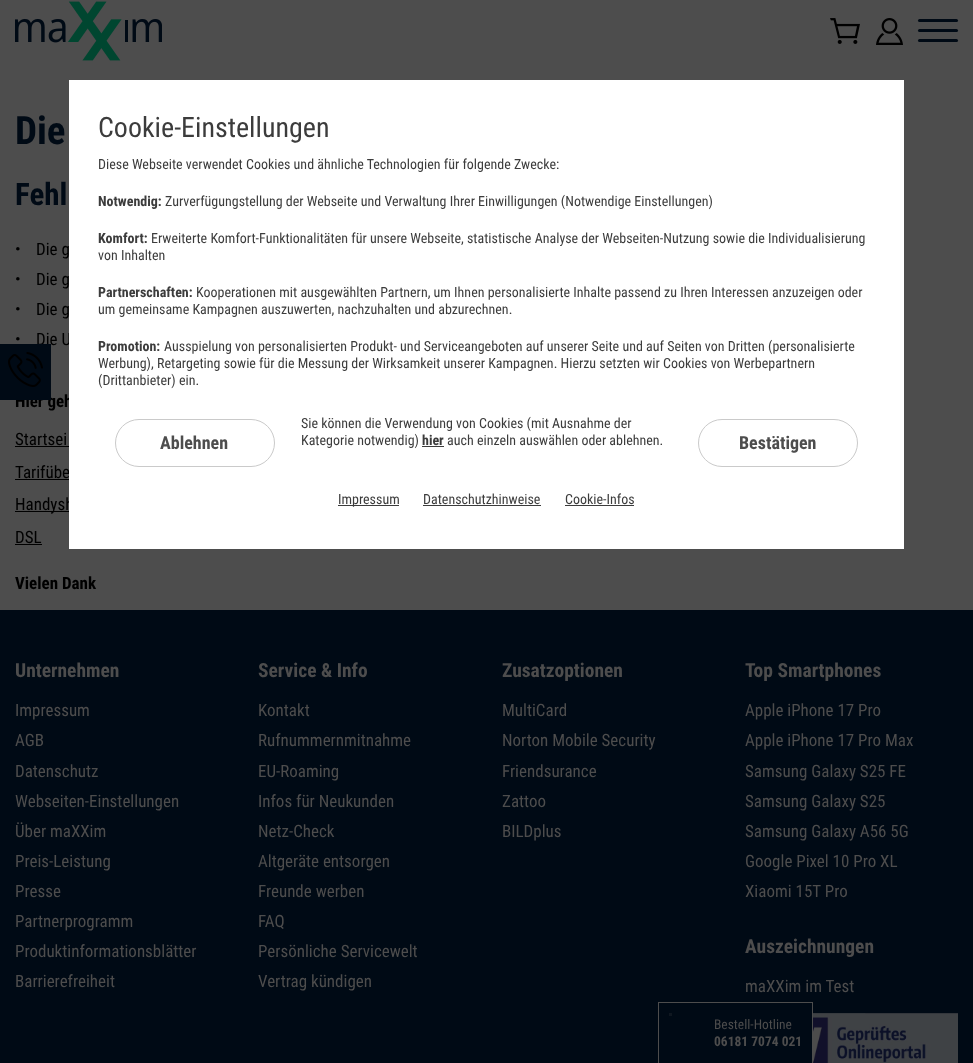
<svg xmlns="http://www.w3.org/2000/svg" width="973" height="1063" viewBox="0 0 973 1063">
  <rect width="100%" height="100%" fill="#4d4d4d"/>
  <image x="15" y="1" width="147" height="60" href="img1.png"/>
  <image x="830" y="18" width="30" height="26" href="img2.png"/>
  <image x="876" y="18" width="27" height="27" href="img3.png"/>
  <rect x="918" y="29" width="40" height="3" rx="1.5" fill="#000a15"/>
  <rect x="918" y="19" width="40" height="3" rx="1.5" fill="#000a15"/>
  <rect x="918" y="39" width="40" height="3" rx="1.5" fill="#000a15"/>
  <text x="15" y="144" font-family="Roboto Condensed" font-size="39" font-weight="bold" fill="#000a15">Die</text>
  <text x="15" y="205" font-family="Roboto Condensed" font-size="31" font-weight="bold" fill="#000a15">Fehl</text>
  <text x="15" y="255" font-family="Roboto Condensed" font-size="17" fill="#000000">•</text>
  <text x="36" y="255" font-family="Roboto Condensed" font-size="17" fill="#000000">Die g</text>
  <text x="15" y="285" font-family="Roboto Condensed" font-size="17" fill="#000000">•</text>
  <text x="36" y="285" font-family="Roboto Condensed" font-size="17" fill="#000000">Die g</text>
  <text x="15" y="315" font-family="Roboto Condensed" font-size="17" fill="#000000">•</text>
  <text x="36" y="315" font-family="Roboto Condensed" font-size="17" fill="#000000">Die g</text>
  <text x="15" y="345" font-family="Roboto Condensed" font-size="17" fill="#000000">•</text>
  <text x="36" y="345" font-family="Roboto Condensed" font-size="17" fill="#000000">Die U</text>
  <text x="15" y="407" font-family="Roboto Condensed" font-size="17" font-weight="bold" fill="#000000">Hier geh</text>
  <text x="15" y="445" font-family="Roboto Condensed" font-size="17" fill="#000000">Startsei</text>
  <rect x="15" y="446" width="54" height="1" fill="#000000"/>
  <text x="15" y="478" font-family="Roboto Condensed" font-size="17" fill="#000000">Tarifübe</text>
  <rect x="15" y="479" width="54" height="1" fill="#000000"/>
  <rect x="15" y="511" width="54" height="1" fill="#000000"/>
  <text x="15" y="510" font-family="Roboto Condensed" font-size="17" fill="#000000">Handysh</text>
  <text x="15" y="543" font-family="Roboto Condensed" font-size="17" fill="#000000">DSL</text>
  <rect x="15" y="544" width="27" height="1" fill="#000000"/>
  <text x="15" y="589" font-family="Roboto Condensed" font-size="17" font-weight="bold" fill="#000000">Vielen Dank</text>
  <rect x="69" y="80" width="835" height="469" fill="#ffffff"/>
  <text x="98" y="137" font-family="Roboto Condensed" font-size="28" fill="#3c3c3c">Cookie-Einstellungen</text>
  <text x="98" y="169" font-family="Roboto Condensed" font-size="14" fill="#3c3c3c">Diese Webseite verwendet Cookies und ähnliche Technologien für folgende Zwecke:</text>
  <text x="98" y="206" font-family="Roboto Condensed" font-size="14" font-weight="bold" fill="#3c3c3c">Notwendig:</text>
  <text x="165" y="206" font-family="Roboto Condensed" font-size="14" fill="#3c3c3c">Zurverfügungstellung der Webseite und Verwaltung Ihrer Einwilligungen (Notwendige Einstellungen)</text>
  <text x="98" y="243" font-family="Roboto Condensed" font-size="14" font-weight="bold" fill="#3c3c3c">Komfort:</text>
  <text x="151" y="243" font-family="Roboto Condensed" font-size="14" fill="#3c3c3c">Erweiterte Komfort-Funktionalitäten für unsere Webseite, statistische Analyse der Webseiten-Nutzung sowie die Individualisierung</text>
  <text x="98" y="260" font-family="Roboto Condensed" font-size="14" fill="#3c3c3c">von Inhalten</text>
  <text x="98" y="297" font-family="Roboto Condensed" font-size="14" font-weight="bold" fill="#3c3c3c">Partnerschaften:</text>
  <text x="196" y="297" font-family="Roboto Condensed" font-size="14" fill="#3c3c3c">Kooperationen mit ausgewählten Partnern, um Ihnen personalisierte Inhalte passend zu Ihren Interessen anzuzeigen oder</text>
  <text x="98" y="314" font-family="Roboto Condensed" font-size="14" fill="#3c3c3c">um gemeinsame Kampagnen auszuwerten, nachzuhalten und abzurechnen.</text>
  <text x="98" y="351" font-family="Roboto Condensed" font-size="14" font-weight="bold" fill="#3c3c3c">Promotion:</text>
  <text x="164" y="351" font-family="Roboto Condensed" font-size="14" fill="#3c3c3c">Ausspielung von personalisierten Produkt- und Serviceangeboten auf unserer Seite und auf Seiten von Dritten (personalisierte</text>
  <text x="98" y="368" font-family="Roboto Condensed" font-size="14" fill="#3c3c3c">Werbung), Retargeting sowie für die Messung der Wirksamkeit unserer Kampagnen. Hierzu setzten wir Cookies von Werbepartnern</text>
  <text x="98" y="385" font-family="Roboto Condensed" font-size="14" fill="#3c3c3c">(Drittanbieter) ein.</text>
  <rect x="115.5" y="419.5" width="159" height="47" rx="23.5" fill="none" stroke="#cacaca"/>
  <text x="160" y="449" font-family="Roboto Condensed" font-size="18" font-weight="bold" fill="#4d4d4d">Ablehnen</text>
  <text x="301" y="428" font-family="Roboto Condensed" font-size="14" fill="#3c3c3c">Sie können die Verwendung von Cookies (mit Ausnahme der</text>
  <text x="301" y="445" font-family="Roboto Condensed" font-size="14" fill="#3c3c3c">Kategorie notwendig)</text>
  <text x="422" y="445" font-family="Roboto Condensed" font-size="14" font-weight="bold" fill="#3c3c3c">hier</text>
  <rect x="422" y="446" width="22" height="1" fill="#3c3c3c"/>
  <text x="447" y="445" font-family="Roboto Condensed" font-size="14" fill="#3c3c3c">auch einzeln auswählen oder ablehnen.</text>
  <rect x="698.5" y="419.5" width="159" height="47" rx="23.5" fill="none" stroke="#cacaca"/>
  <text x="739" y="449" font-family="Roboto Condensed" font-size="18" font-weight="bold" fill="#4d4d4d">Bestätigen</text>
  <rect x="338" y="505" width="61" height="1" fill="#3c3c3c"/>
  <text x="338" y="504" font-family="Roboto Condensed" font-size="14" fill="#3c3c3c">Impressum</text>
  <text x="423" y="504" font-family="Roboto Condensed" font-size="14" fill="#3c3c3c">Datenschutzhinweise</text>
  <rect x="423" y="505" width="118" height="1" fill="#3c3c3c"/>
  <text x="565" y="504" font-family="Roboto Condensed" font-size="14" fill="#3c3c3c">Cookie-Infos</text>
  <rect x="565" y="505" width="69" height="1" fill="#3c3c3c"/>
  <rect x="0" y="344" width="51" height="56" fill="#000a15"/>
  <image x="8" y="352" width="35" height="35" href="img4.png"/>
  <rect x="0" y="610" width="973" height="453" fill="#000a15"/>
  <text x="15" y="677" font-family="Roboto Condensed" font-size="19.5" font-weight="bold" fill="#4d4d4d">Unternehmen</text>
  <text x="15" y="716" font-family="Roboto Condensed" font-size="17" fill="#4d4d4d">Impressum</text>
  <text x="15" y="746" font-family="Roboto Condensed" font-size="17" fill="#4d4d4d">AGB</text>
  <text x="15" y="777" font-family="Roboto Condensed" font-size="17" fill="#4d4d4d">Datenschutz</text>
  <text x="15" y="807" font-family="Roboto Condensed" font-size="17" fill="#4d4d4d">Webseiten-Einstellungen</text>
  <text x="15" y="837" font-family="Roboto Condensed" font-size="17" fill="#4d4d4d">Über maXXim</text>
  <text x="15" y="867" font-family="Roboto Condensed" font-size="17" fill="#4d4d4d">Preis-Leistung</text>
  <text x="15" y="897" font-family="Roboto Condensed" font-size="17" fill="#4d4d4d">Presse</text>
  <text x="15" y="927" font-family="Roboto Condensed" font-size="17" fill="#4d4d4d">Partnerprogramm</text>
  <text x="15" y="957" font-family="Roboto Condensed" font-size="17" fill="#4d4d4d">Produktinformationsblätter</text>
  <text x="15" y="987" font-family="Roboto Condensed" font-size="17" fill="#4d4d4d">Barrierefreiheit</text>
  <text x="258" y="677" font-family="Roboto Condensed" font-size="19.5" font-weight="bold" fill="#4d4d4d">Service &amp; Info</text>
  <text x="258" y="716" font-family="Roboto Condensed" font-size="17" fill="#4d4d4d">Kontakt</text>
  <text x="258" y="746" font-family="Roboto Condensed" font-size="17" fill="#4d4d4d">Rufnummernmitnahme</text>
  <text x="258" y="777" font-family="Roboto Condensed" font-size="17" fill="#4d4d4d">EU-Roaming</text>
  <text x="258" y="807" font-family="Roboto Condensed" font-size="17" fill="#4d4d4d">Infos für Neukunden</text>
  <text x="258" y="837" font-family="Roboto Condensed" font-size="17" fill="#4d4d4d">Netz-Check</text>
  <text x="258" y="867" font-family="Roboto Condensed" font-size="17" fill="#4d4d4d">Altgeräte entsorgen</text>
  <text x="258" y="897" font-family="Roboto Condensed" font-size="17" fill="#4d4d4d">Freunde werben</text>
  <text x="258" y="927" font-family="Roboto Condensed" font-size="17" fill="#4d4d4d">FAQ</text>
  <text x="258" y="957" font-family="Roboto Condensed" font-size="17" fill="#4d4d4d">Persönliche Servicewelt</text>
  <text x="258" y="987" font-family="Roboto Condensed" font-size="17" fill="#4d4d4d">Vertrag kündigen</text>
  <text x="502" y="677" font-family="Roboto Condensed" font-size="19.5" font-weight="bold" fill="#4d4d4d">Zusatzoptionen</text>
  <text x="502" y="716" font-family="Roboto Condensed" font-size="17" fill="#4d4d4d">MultiCard</text>
  <text x="502" y="746" font-family="Roboto Condensed" font-size="17" fill="#4d4d4d">Norton Mobile Security</text>
  <text x="502" y="777" font-family="Roboto Condensed" font-size="17" fill="#4d4d4d">Friendsurance</text>
  <text x="502" y="807" font-family="Roboto Condensed" font-size="17" fill="#4d4d4d">Zattoo</text>
  <text x="502" y="837" font-family="Roboto Condensed" font-size="17" fill="#4d4d4d">BILDplus</text>
  <text x="745" y="677" font-family="Roboto Condensed" font-size="19.5" font-weight="bold" fill="#4d4d4d">Top Smartphones</text>
  <text x="745" y="716" font-family="Roboto Condensed" font-size="17" fill="#4d4d4d">Apple iPhone 17 Pro</text>
  <text x="745" y="746" font-family="Roboto Condensed" font-size="17" fill="#4d4d4d">Apple iPhone 17 Pro Max</text>
  <text x="745" y="777" font-family="Roboto Condensed" font-size="17" fill="#4d4d4d">Samsung Galaxy S25 FE</text>
  <text x="745" y="807" font-family="Roboto Condensed" font-size="17" fill="#4d4d4d">Samsung Galaxy S25</text>
  <text x="745" y="837" font-family="Roboto Condensed" font-size="17" fill="#4d4d4d">Samsung Galaxy A56 5G</text>
  <text x="745" y="867" font-family="Roboto Condensed" font-size="17" fill="#4d4d4d">Google Pixel 10 Pro XL</text>
  <text x="745" y="897" font-family="Roboto Condensed" font-size="17" fill="#4d4d4d">Xiaomi 15T Pro</text>
  <text x="745" y="953" font-family="Roboto Condensed" font-size="19.5" font-weight="bold" fill="#4d4d4d">Auszeichnungen</text>
  <text x="745" y="992" font-family="Roboto Condensed" font-size="17" fill="#4d4d4d">maXXim im Test</text>
  <image x="813" y="1013" width="145" height="50" href="img5.png"/>
  <rect x="658" y="1002" width="155" height="1" fill="#4d4d4d"/>
  <rect x="812" y="1002" width="1" height="61" fill="#4d4d4d"/>
  <rect x="658" y="1002" width="1" height="61" fill="#4d4d4d"/>
  <rect x="669" y="1013" width="3" height="3" fill="#0f1720"/>
  <text x="714" y="1029" font-family="Roboto Condensed" font-size="13.5" fill="#4d4d4d">Bestell-Hotline</text>
  <text x="714" y="1046" font-family="Roboto Condensed" font-size="13.5" font-weight="bold" fill="#4d4d4d">06181 7074 021</text>
</svg>
